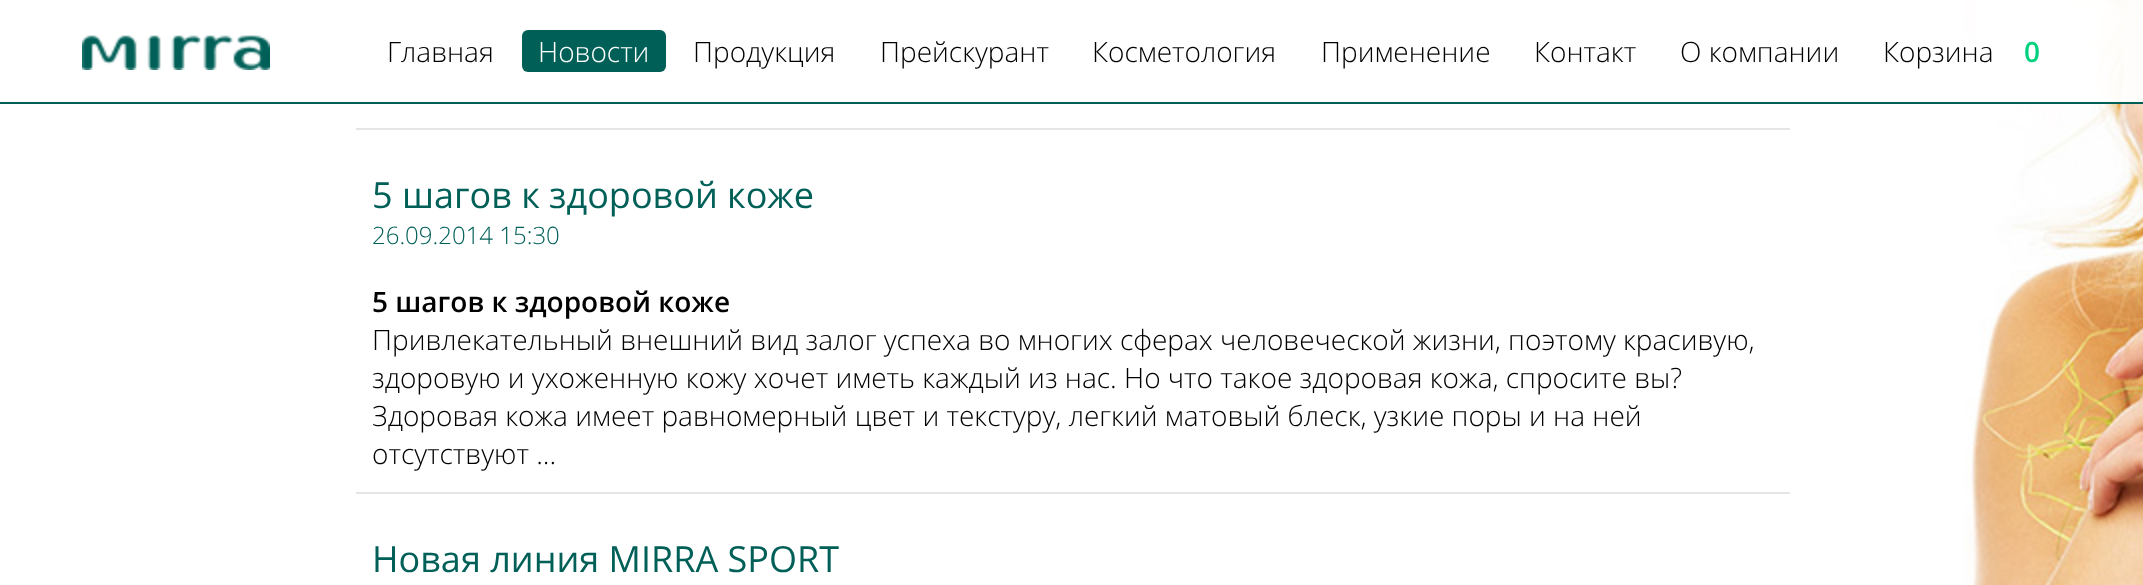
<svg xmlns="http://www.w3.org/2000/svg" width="2143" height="585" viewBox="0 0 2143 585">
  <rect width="100%" height="100%" fill="#ffffff"/>
  <image x="1964" y="0" width="179" height="585" href="img2.png"/>
  <rect x="1977" y="0" width="166" height="102" fill="#ffffff" fill-opacity="0.95"/>
  <rect x="0" y="102" width="2143" height="2" fill="#006058"/>
  <image x="82" y="35" width="188" height="35" href="img1.png"/>
  <text x="387" y="62" font-family="Open Sans" font-size="28" font-weight="300" fill="#000000">Главная</text>
  <rect x="522" y="30" width="144" height="42" rx="6" fill="#006058"/>
  <text x="538" y="62" font-family="Open Sans" font-size="28" font-weight="300" fill="#ffffff">Новости</text>
  <text x="693" y="62" font-family="Open Sans" font-size="28" font-weight="300" fill="#000000">Продукция</text>
  <text x="880" y="62" font-family="Open Sans" font-size="28" font-weight="300" fill="#000000">Прейскурант</text>
  <text x="1092" y="62" font-family="Open Sans" font-size="28" font-weight="300" fill="#000000">Косметология</text>
  <text x="1321" y="62" font-family="Open Sans" font-size="28" font-weight="300" fill="#000000">Применение</text>
  <text x="1534" y="62" font-family="Open Sans" font-size="28" font-weight="300" fill="#000000">Контакт</text>
  <text x="1680" y="62" font-family="Open Sans" font-size="28" font-weight="300" fill="#000000">О компании</text>
  <text x="1883" y="62" font-family="Open Sans" font-size="28" font-weight="300" fill="#000000">Корзина</text>
  <text x="2024" y="62" font-family="Open Sans" font-size="28" font-weight="600" fill="#00d280">0</text>
  <rect x="356" y="128" width="1434" height="2" fill="#e5e5e5"/>
  <rect x="356" y="492" width="1434" height="2" fill="#e5e5e5"/>
  <text x="372" y="208" font-family="Open Sans" font-size="36" fill="#006058">5 шагов к здоровой коже</text>
  <text x="372" y="244" font-family="Open Sans" font-size="24" font-weight="300" fill="#006058">26.09.2014 15:30</text>
  <text x="372" y="312" font-family="Open Sans" font-size="28" font-weight="600" fill="#000000">5 шагов к здоровой коже</text>
  <text x="372" y="350" font-family="Open Sans" font-size="28" font-weight="300" fill="#000000">Привлекательный внешний вид залог успеха во многих сферах человеческой жизни, поэтому красивую,</text>
  <text x="372" y="388" font-family="Open Sans" font-size="28" font-weight="300" fill="#000000">здоровую и ухоженную кожу хочет иметь каждый из нас. Но что такое здоровая кожа, спросите вы?</text>
  <text x="372" y="426" font-family="Open Sans" font-size="28" font-weight="300" fill="#000000">Здоровая кожа имеет равномерный цвет и текстуру, легкий матовый блеск, узкие поры и на ней</text>
  <text x="372" y="464" font-family="Open Sans" font-size="28" font-weight="300" fill="#000000">отсутствуют ...</text>
  <text x="372" y="572" font-family="Open Sans" font-size="36" fill="#006058">Новая линия MIRRA SPORT</text>
</svg>
